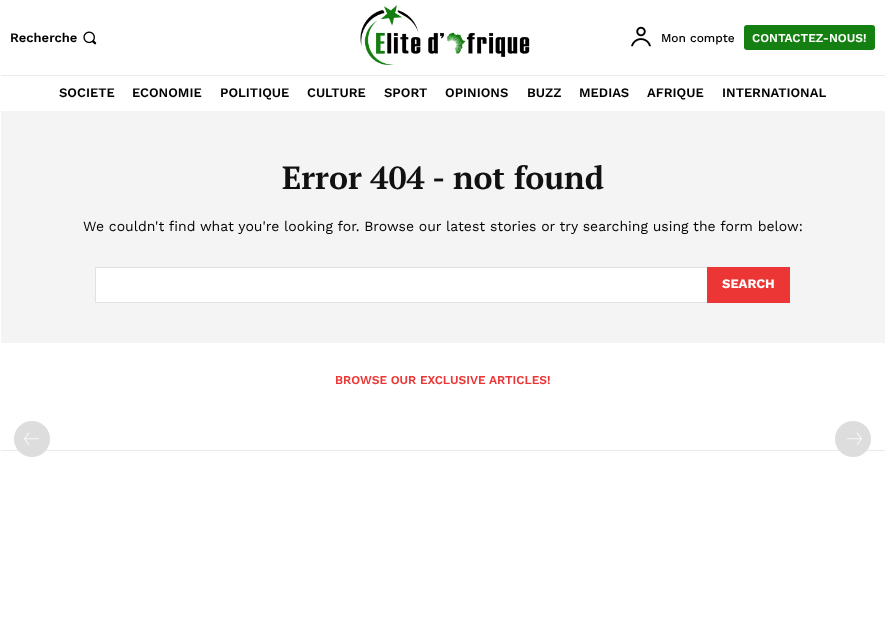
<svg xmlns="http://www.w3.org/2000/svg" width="885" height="642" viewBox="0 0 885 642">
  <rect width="100%" height="100%" fill="#ffffff"/>
  <text x="10" y="42" font-family="Work Sans" font-size="13" font-weight="600" fill="#000000">Recherche</text>
  <image x="83" y="31" width="14" height="14" href="img1.png"/>
  <image x="360" y="5" width="170" height="60" href="img2.png"/>
  <image x="631" y="26" width="20" height="21" href="img3.png"/>
  <text x="661" y="42" font-family="Work Sans" font-size="12" font-weight="500" fill="#000000">Mon compte</text>
  <rect x="744" y="25" width="131" height="25" rx="3" fill="#148011"/>
  <text x="752" y="42" font-family="Work Sans" font-size="12" font-weight="600" fill="#ffffff">CONTACTEZ-NOUS!</text>
  <rect x="1" y="75" width="884" height="1" fill="#eaeaea"/>
  <text x="59" y="97" font-family="Work Sans" font-size="13" font-weight="600" fill="#000000">SOCIETE</text>
  <text x="132" y="97" font-family="Work Sans" font-size="13" font-weight="600" fill="#000000">ECONOMIE</text>
  <text x="220" y="97" font-family="Work Sans" font-size="13" font-weight="600" fill="#000000">POLITIQUE</text>
  <text x="307" y="97" font-family="Work Sans" font-size="13" font-weight="600" fill="#000000">CULTURE</text>
  <text x="384" y="97" font-family="Work Sans" font-size="13" font-weight="600" fill="#000000">SPORT</text>
  <text x="445" y="97" font-family="Work Sans" font-size="13" font-weight="600" fill="#000000">OPINIONS</text>
  <text x="527" y="97" font-family="Work Sans" font-size="13" font-weight="600" fill="#000000">BUZZ</text>
  <text x="579" y="97" font-family="Work Sans" font-size="13" font-weight="600" fill="#000000">MEDIAS</text>
  <text x="647" y="97" font-family="Work Sans" font-size="13" font-weight="600" fill="#000000">AFRIQUE</text>
  <text x="722" y="97" font-family="Work Sans" font-size="13" font-weight="600" fill="#000000">INTERNATIONAL</text>
  <rect x="1" y="111" width="884" height="232" fill="#f4f4f4"/>
  <text x="282" y="189" font-family="PT Serif" font-size="32" font-weight="bold" fill="#111111">Error 404 - not found</text>
  <text x="83" y="231" font-family="Work Sans" font-size="14" fill="#000000">We couldn't find what you're looking for. Browse our latest stories or try searching using the form below:</text>
  <rect x="96" y="268" width="611" height="34" fill="#ffffff"/>
  <rect x="95.5" y="267.5" width="694" height="35" fill="none" stroke="#e1e1e1"/>
  <rect x="707" y="267" width="83" height="36" fill="#ec3535"/>
  <text x="722" y="288" font-family="Work Sans" font-size="13" font-weight="bold" fill="#ffffff">SEARCH</text>
  <text x="335" y="384" font-family="Work Sans" font-size="12" font-weight="600" fill="#ec3535">BROWSE OUR EXCLUSIVE ARTICLES!</text>
  <rect x="1" y="450" width="884" height="1" fill="#eaeaea"/>
  <circle cx="32" cy="439" r="18" fill="#dddddd"/>
  <image x="24" y="432" width="15" height="13" href="img4.png"/>
  <circle cx="853" cy="439" r="18" fill="#dddddd"/>
  <image x="847" y="432" width="15" height="13" href="img5.png"/>
</svg>
